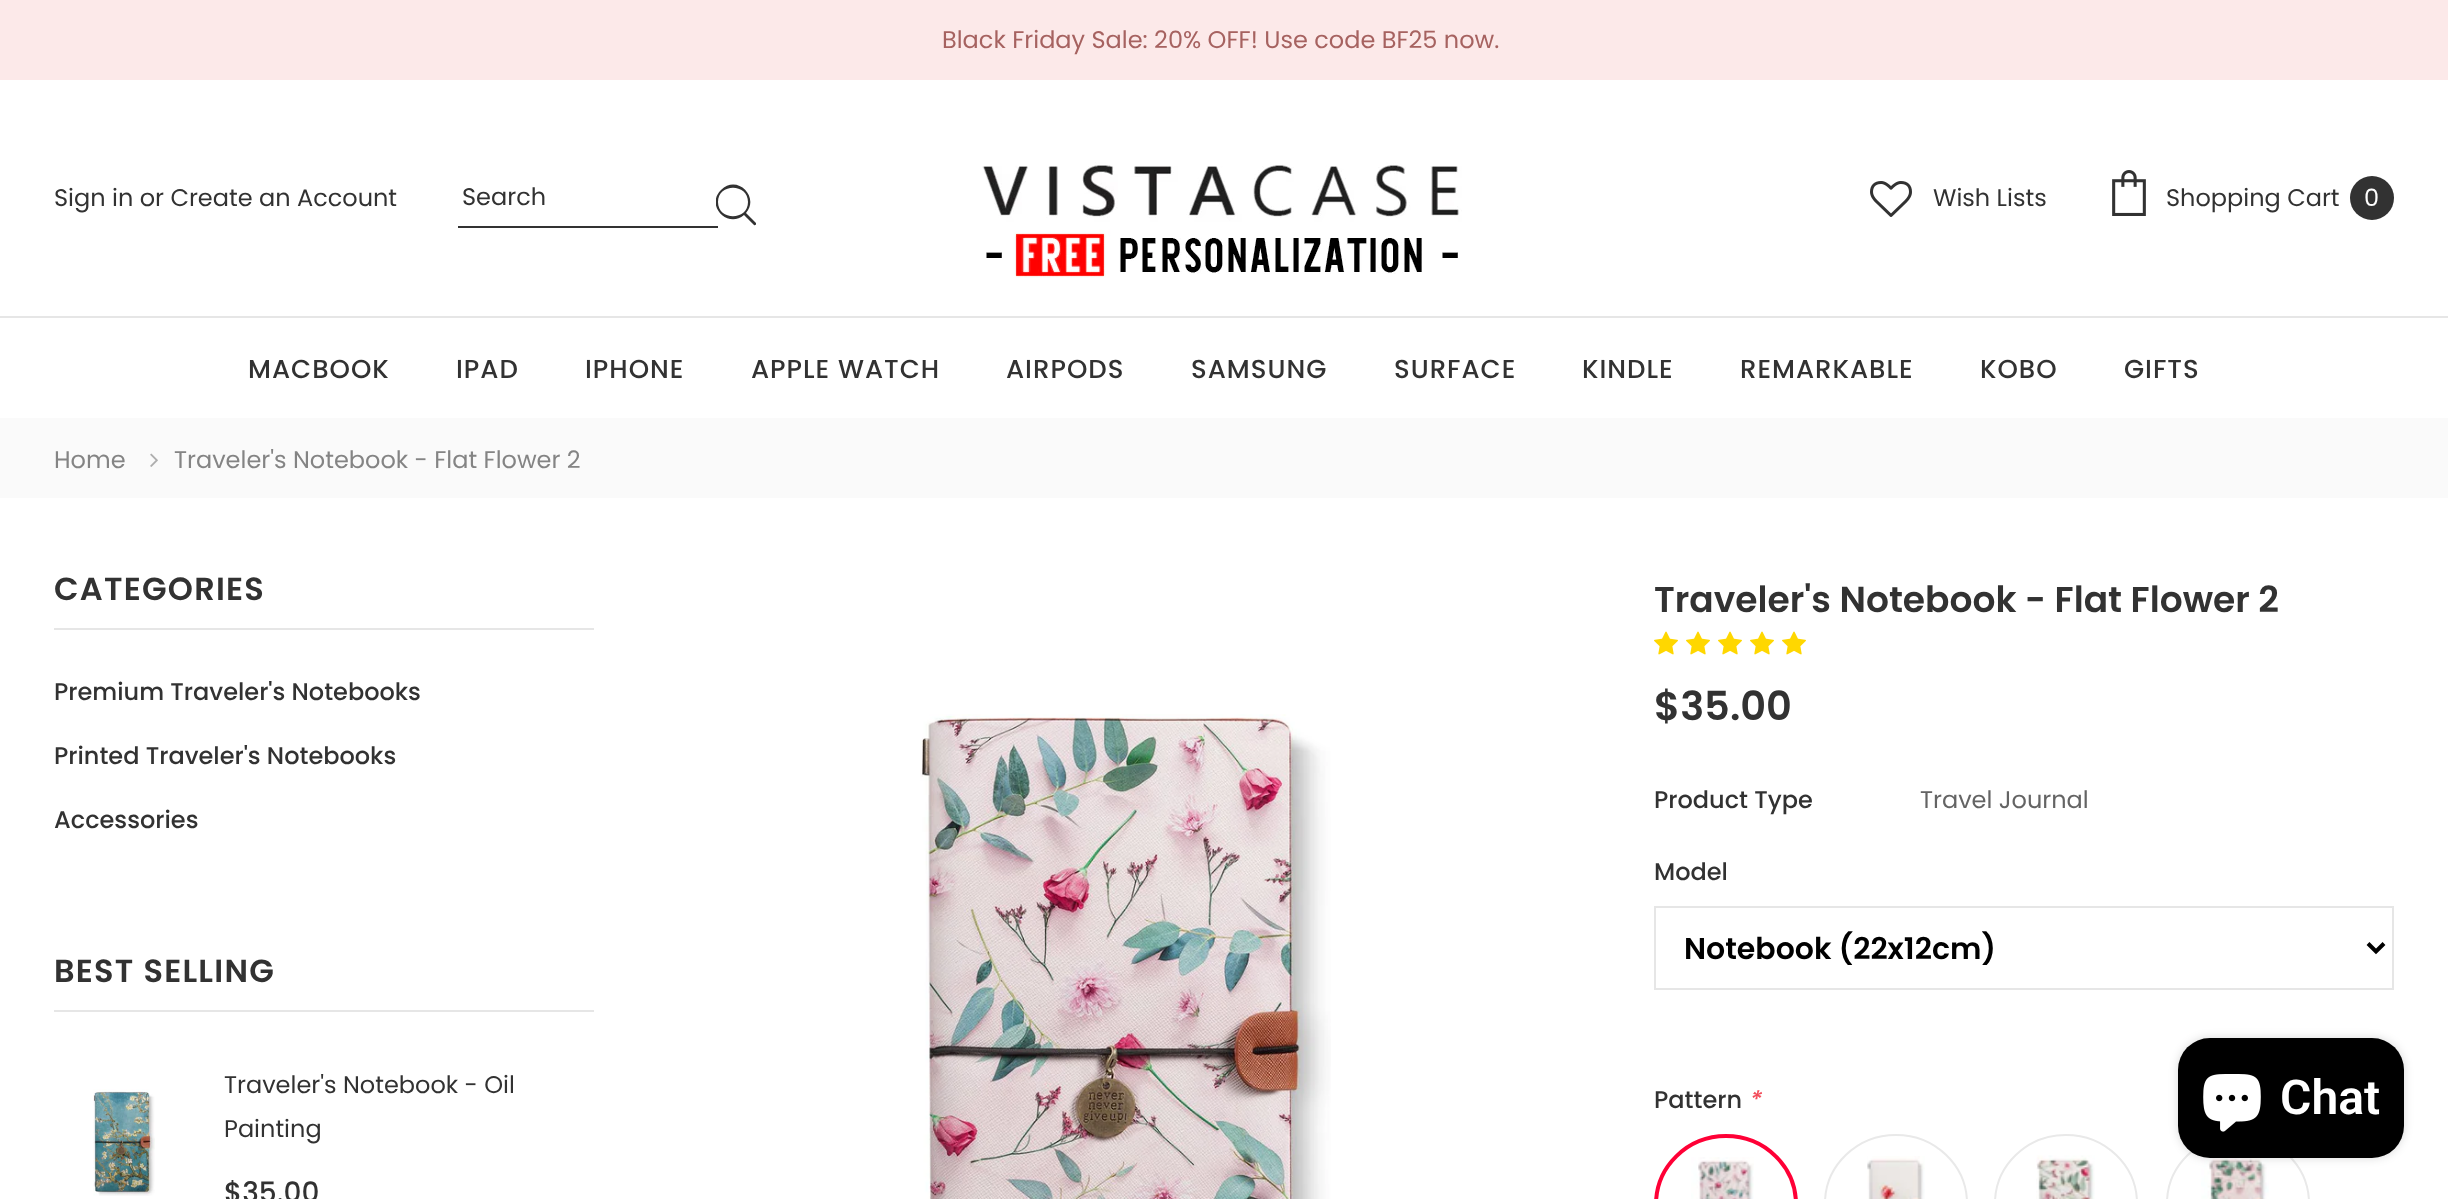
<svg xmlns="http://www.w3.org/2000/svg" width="2448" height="1199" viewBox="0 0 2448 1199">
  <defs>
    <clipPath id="clip1"><rect x="716" y="168" width="40" height="60"/></clipPath>
    <filter id="blur1" x="-50%" y="-200%" width="200%" height="500%"><feGaussianBlur stdDeviation="5"/></filter>
  </defs>
  <rect width="100%" height="100%" fill="#ffffff"/>
  <rect x="0" y="0" width="2448" height="80" fill="#fce9e9"/>
  <text x="942" y="48" font-family="Poppins" font-size="24" fill="#a66260">Black Friday Sale: 20% OFF! Use code BF25 now.</text>
  <rect x="0" y="316" width="2448" height="2" fill="#e6e6e6"/>
  <text x="54" y="206" font-family="Poppins" font-size="24" fill="#323232">Sign in or Create an Account</text>
  <rect x="458" y="226" width="260" height="2" fill="#323232"/>
  <text x="462" y="205" font-family="Poppins" font-size="24" fill="#323232">Search</text>
  <g clip-path="url(#clip1)">
    <path d="M756 223L746 213C760 197 737 174 721 190C705 206 728 229 744 215L754 225C755 226 757 224 756 223ZM718 202C718 183 748 183 748 202C748 221 718 221 718 202Z" fill="#323232"/>
  </g>
  <image x="982" y="162" width="480" height="116" href="img1.png"/>
  <image x="1870" y="181" width="42" height="36" href="img2.png"/>
  <text x="1933" y="206" font-family="Poppins" font-size="24" fill="#323232">Wish Lists</text>
  <image x="2112" y="170" width="34" height="46" href="img3.png"/>
  <text x="2166" y="206" font-family="Poppins" font-size="24" fill="#323232">Shopping Cart</text>
  <circle cx="2372" cy="198" r="22" fill="#323232"/>
  <text x="2364" y="206" font-family="Poppins" font-size="24" fill="#ffffff">0</text>
  <text x="248" y="378" font-family="Poppins" font-size="26" font-weight="500" letter-spacing="1" fill="#323232">MACBOOK</text>
  <text x="456" y="378" font-family="Poppins" font-size="26" font-weight="500" letter-spacing="1" fill="#323232">IPAD</text>
  <text x="585" y="378" font-family="Poppins" font-size="26" font-weight="500" letter-spacing="1" fill="#323232">IPHONE</text>
  <text x="751" y="378" font-family="Poppins" font-size="26" font-weight="500" letter-spacing="1" fill="#323232">APPLE WATCH</text>
  <text x="1006" y="378" font-family="Poppins" font-size="26" font-weight="500" letter-spacing="1" fill="#323232">AIRPODS</text>
  <text x="1191" y="378" font-family="Poppins" font-size="26" font-weight="500" letter-spacing="1" fill="#323232">SAMSUNG</text>
  <text x="1394" y="378" font-family="Poppins" font-size="26" font-weight="500" letter-spacing="1" fill="#323232">SURFACE</text>
  <text x="1582" y="378" font-family="Poppins" font-size="26" font-weight="500" letter-spacing="1" fill="#323232">KINDLE</text>
  <text x="1740" y="378" font-family="Poppins" font-size="26" font-weight="500" letter-spacing="1" fill="#323232">REMARKABLE</text>
  <text x="1980" y="378" font-family="Poppins" font-size="26" font-weight="500" letter-spacing="1" fill="#323232">KOBO</text>
  <text x="2124" y="378" font-family="Poppins" font-size="26" font-weight="500" letter-spacing="1" fill="#323232">GIFTS</text>
  <rect x="0" y="418" width="2448" height="80" fill="#fafafa"/>
  <text x="54" y="468" font-family="Poppins" font-size="24" fill="#848484">Home</text>
  <image x="150" y="453" width="8" height="14" href="img4.png"/>
  <text x="174" y="468" font-family="Poppins" font-size="24" fill="#848484">Traveler's Notebook - Flat Flower 2</text>
  <rect x="54" y="628" width="540" height="2" fill="#e6e6e6"/>
  <text x="54" y="600" font-family="Poppins" font-size="32" font-weight="600" letter-spacing="1.25" fill="#323232">CATEGORIES</text>
  <text x="54" y="700" font-family="Poppins" font-size="24" font-weight="500" fill="#323232">Premium Traveler's Notebooks</text>
  <text x="54" y="764" font-family="Poppins" font-size="24" font-weight="500" fill="#323232">Printed Traveler's Notebooks</text>
  <text x="54" y="828" font-family="Poppins" font-size="24" font-weight="500" fill="#323232">Accessories</text>
  <rect x="54" y="1010" width="540" height="2" fill="#e6e6e6"/>
  <text x="54" y="982" font-family="Poppins" font-size="32" font-weight="600" letter-spacing="1.25" fill="#323232">BEST SELLING</text>
  <image x="93" y="1089" width="62" height="107" href="img5.png"/>
  <text x="224" y="1093" font-family="Poppins" font-size="24" fill="#323232">Traveler's Notebook - Oil</text>
  <text x="224" y="1137" font-family="Poppins" font-size="24" fill="#323232">Painting</text>
  <text x="224" y="1202" font-family="Poppins" font-size="28" font-weight="500" fill="#323232">$35.00</text>
  <image x="920" y="714" width="411" height="485" href="img6.png"/>
  <text x="1654" y="612" font-family="Poppins" font-size="36" font-weight="600" fill="#323232">Traveler's Notebook - Flat Flower 2</text>
  <image x="1654" y="631" width="24" height="24" href="img7.png"/>
  <image x="1686" y="631" width="24" height="24" href="img7.png"/>
  <image x="1718" y="631" width="24" height="24" href="img7.png"/>
  <image x="1750" y="631" width="24" height="24" href="img7.png"/>
  <image x="1782" y="631" width="24" height="24" href="img7.png"/>
  <text x="1654" y="720" font-family="Poppins" font-size="40" font-weight="600" fill="#323232">$35.00</text>
  <text x="1654" y="808" font-family="Poppins" font-size="24" font-weight="500" fill="#323232">Product Type</text>
  <text x="1920" y="808" font-family="Poppins" font-size="24" fill="#646464">Travel Journal</text>
  <text x="1654" y="880" font-family="Poppins" font-size="24" font-weight="500" fill="#323232">Model</text>
  <rect x="1655" y="907" width="738" height="82" fill="none" stroke="#e6e6e6" stroke-width="2"/>
  <path d="M2368 943.5L2376 951.5L2384 943.5" fill="none" stroke="#000000" stroke-width="4"/>
  <text x="1684" y="959" font-family="Poppins" font-size="30" font-weight="600" fill="#000000">Notebook (22x12cm)</text>
  <text x="1654" y="1108" font-family="Poppins" font-size="24" font-weight="500" fill="#323232">Pattern</text>
  <text x="1748" y="1108" font-family="Poppins" font-size="24" font-weight="500" font-style="italic" fill="#f34c5a">*</text>
  <rect x="1656" y="1136" width="140" height="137" rx="70" fill="none" stroke="#ff0036" stroke-width="4"/>
  <image x="1691" y="1157" width="63" height="42" href="img8.png"/>
  <rect x="1825" y="1135" width="142" height="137" rx="71" fill="none" stroke="#e9e9e9" stroke-width="2"/>
  <image x="1867" y="1156" width="58" height="43" href="img9.png"/>
  <rect x="1995" y="1135" width="142" height="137" rx="71" fill="none" stroke="#e9e9e9" stroke-width="2"/>
  <image x="2036" y="1155" width="59" height="44" href="img10.png"/>
  <rect x="2167" y="1135" width="142" height="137" rx="71" fill="none" stroke="#e9e9e9" stroke-width="2"/>
  <image x="2201" y="1156" width="68" height="43" href="img11.png"/>
  <rect x="2178" y="1038" width="226" height="120" rx="32" fill="#000000" fill-opacity="0.15" filter="url(#blur1)"/>
  <rect x="2178" y="1038" width="226" height="120" rx="32" fill="#000000"/>
  <image x="2203" y="1074" width="58" height="58" href="img12.png"/>
  <text x="2280" y="1114" font-family="Roboto" font-size="48" font-weight="600" fill="#ffffff">Chat</text>
</svg>
